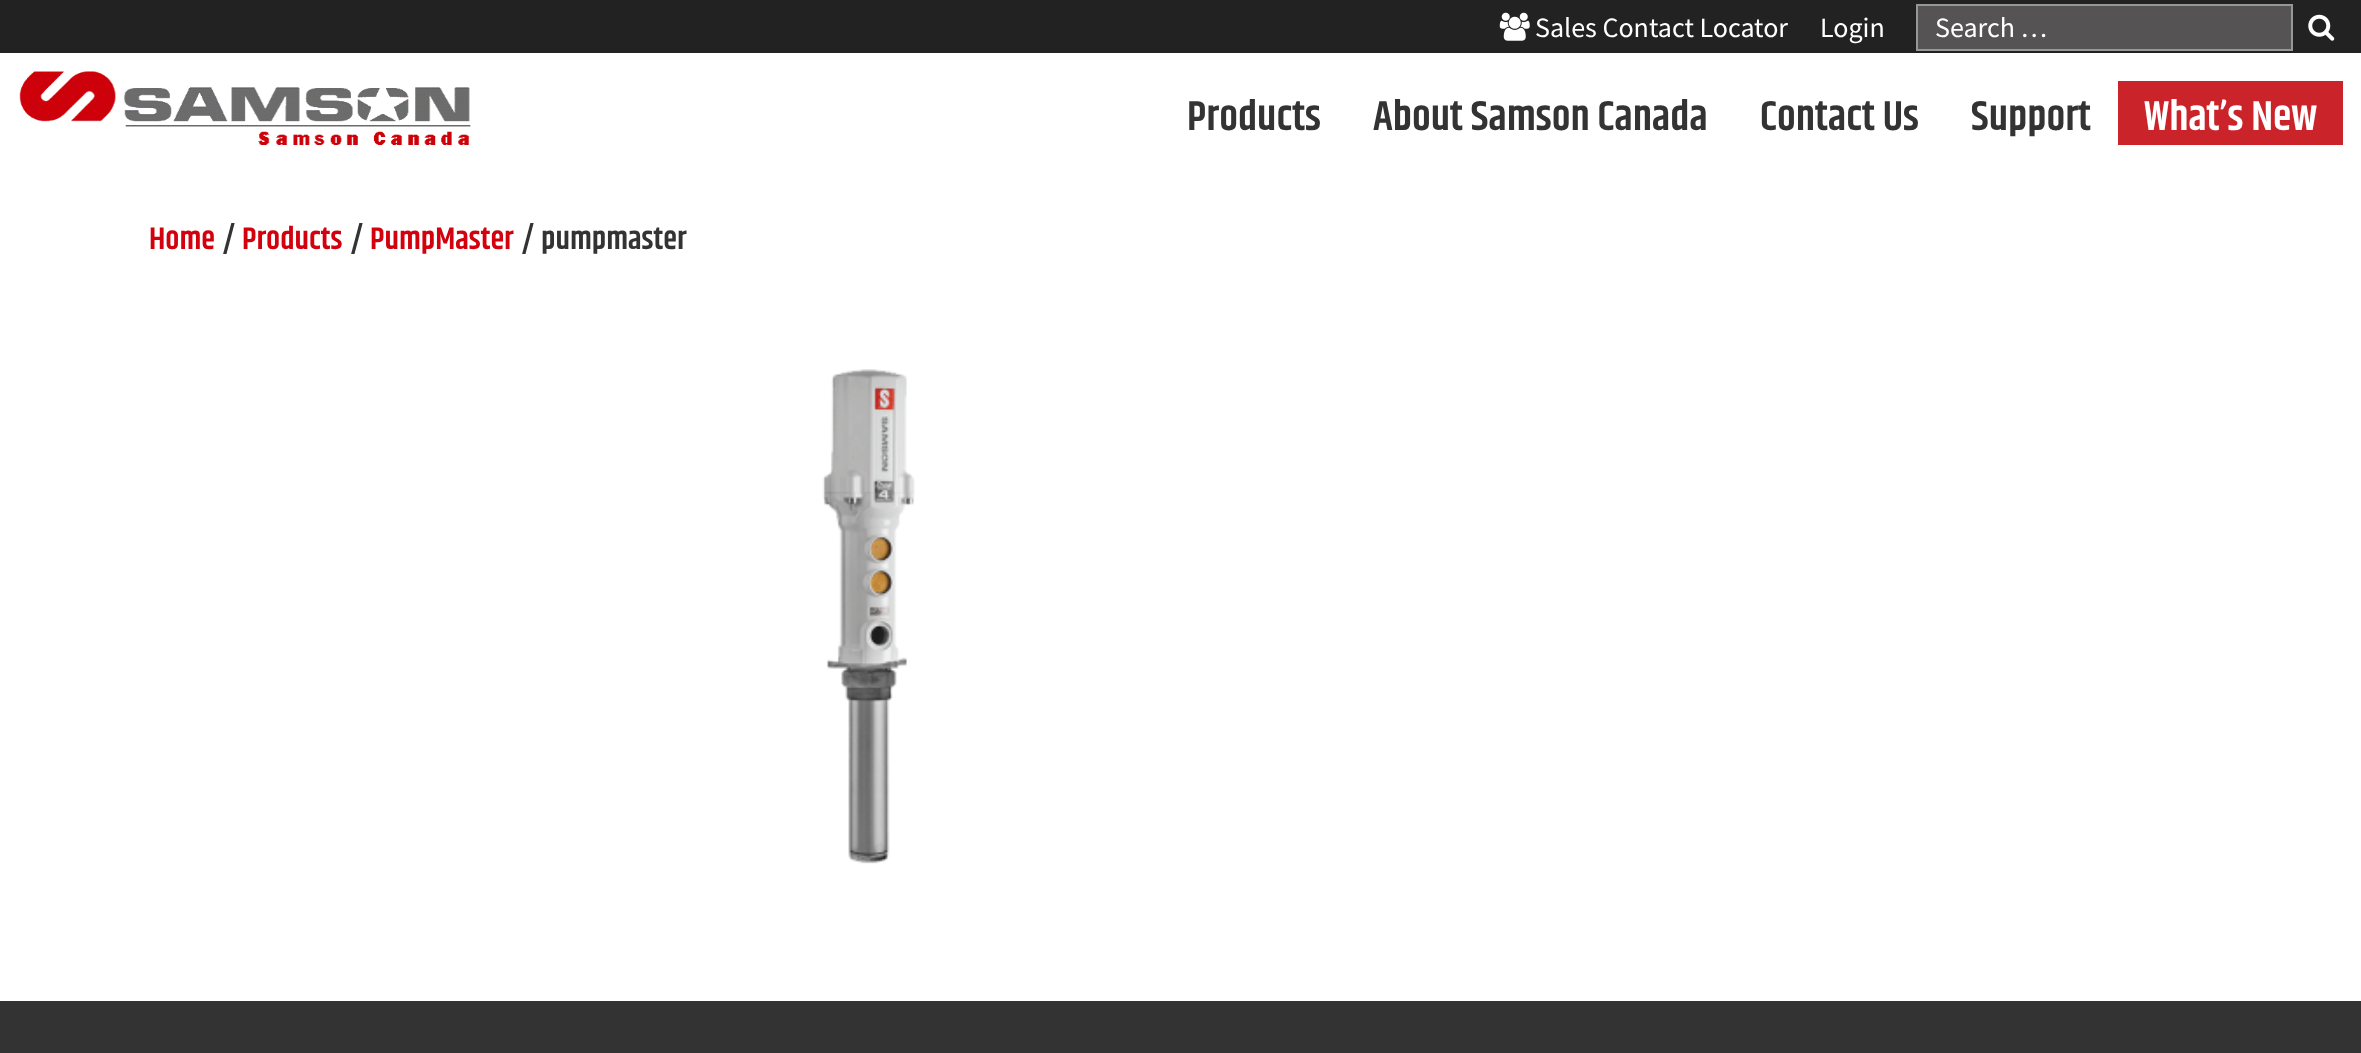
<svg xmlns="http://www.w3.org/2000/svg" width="2361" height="1053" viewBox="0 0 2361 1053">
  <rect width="100%" height="100%" fill="#ffffff"/>
  <rect x="0" y="0" width="2361" height="53" fill="#222222"/>
  <image x="1499" y="12" width="31" height="29" href="img1.png"/>
  <text x="1535" y="37" font-family="Source Sans Pro" font-size="28" fill="#ffffff">Sales Contact Locator</text>
  <text x="1820" y="37" font-family="Source Sans Pro" font-size="28" fill="#ffffff">Login</text>
  <rect x="1917" y="5" width="375" height="45" fill="#555353" stroke="#979797" stroke-width="2"/>
  <text x="1935" y="37" font-family="Source Sans Pro" font-size="28" fill="#ffffff">Search …</text>
  <image x="2308" y="14" width="27" height="27" href="img2.png"/>
  <image x="19" y="71" width="452" height="74" href="img3.png"/>
  <text x="1187" y="130" font-family="Khand" font-size="42" font-weight="600" fill="#333333">Products</text>
  <text x="1373" y="130" font-family="Khand" font-size="42" font-weight="600" fill="#333333">About Samson Canada</text>
  <text x="1760" y="130" font-family="Khand" font-size="42" font-weight="600" fill="#333333">Contact Us</text>
  <text x="1971" y="130" font-family="Khand" font-size="42" font-weight="600" fill="#333333">Support</text>
  <rect x="2118" y="81" width="225" height="64" fill="#cb232a"/>
  <text x="2144" y="130" font-family="Khand" font-size="42" font-weight="600" fill="#ffffff">What’s New</text>
  <text x="149" y="249" font-family="Khand" font-size="31.5" font-weight="600" fill="#d3000d">Home</text>
  <text x="222" y="249" font-family="Khand" font-size="31.5" font-weight="600" fill="#333333">/</text>
  <text x="242" y="249" font-family="Khand" font-size="31.5" font-weight="600" fill="#d3000d">Products</text>
  <text x="350" y="249" font-family="Khand" font-size="31.5" font-weight="600" fill="#333333">/</text>
  <text x="370" y="249" font-family="Khand" font-size="31.5" font-weight="600" fill="#d3000d">PumpMaster</text>
  <text x="521" y="249" font-family="Khand" font-size="31.5" font-weight="600" fill="#333333">/</text>
  <text x="541" y="249" font-family="Khand" font-size="31.5" font-weight="600" fill="#333333">pumpmaster</text>
  <image x="822" y="369" width="93" height="495" href="img4.png"/>
  <rect x="0" y="1001" width="2361" height="52" fill="#333333"/>
</svg>
